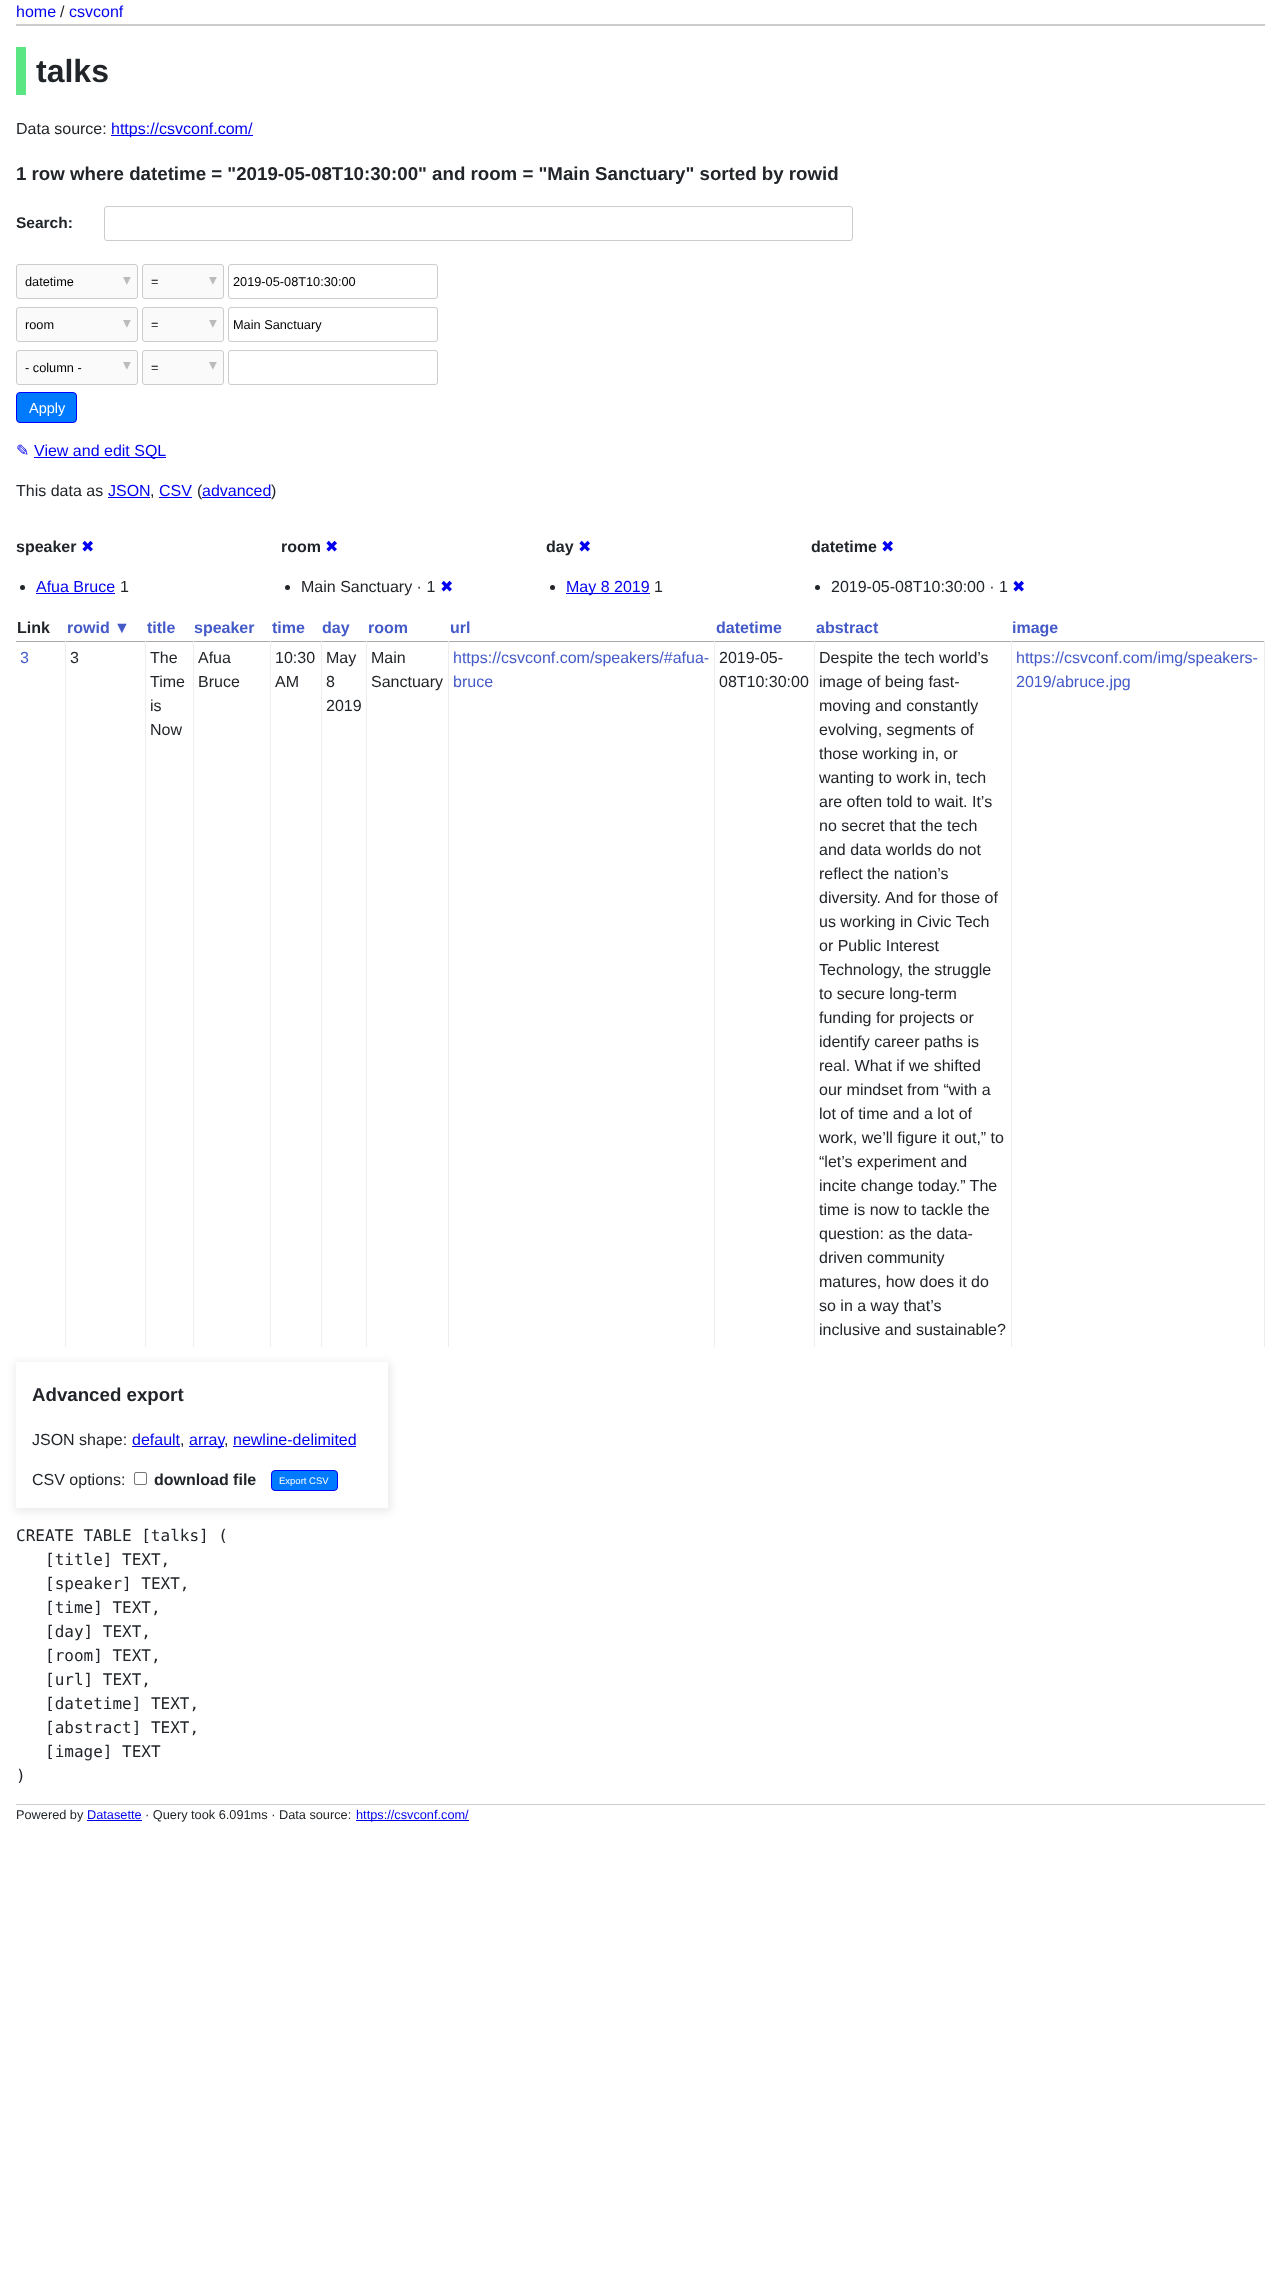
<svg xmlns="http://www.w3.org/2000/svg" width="1281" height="2280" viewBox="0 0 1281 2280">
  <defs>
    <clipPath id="clip1"><path d="M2 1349H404V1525H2ZM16 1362H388V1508H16Z" clip-rule="evenodd"/></clipPath>
    <filter id="blur1" x="-50%" y="-200%" width="200%" height="500%"><feGaussianBlur stdDeviation="4"/></filter>
  </defs>
  <rect width="100%" height="100%" fill="#ffffff"/>
  <rect x="16" y="24" width="1249" height="2" fill="#cccccc"/>
  <text x="16" y="17" font-family="Liberation Sans" font-size="16" fill="#0000ee">home</text>
  <text x="60" y="17" font-family="Liberation Sans" font-size="16" fill="#212529">/</text>
  <text x="69" y="17" font-family="Liberation Sans" font-size="16" fill="#0000ee">csvconf</text>
  <rect x="16" y="47" width="10" height="48" fill="#5ae783"/>
  <text x="36" y="82" font-family="Liberation Sans" font-size="32" font-weight="bold" fill="#212529">talks</text>
  <text x="16" y="134" font-family="Liberation Sans" font-size="16" fill="#212529">Data source:</text>
  <rect x="111" y="135" width="142" height="1" fill="#0000ee"/>
  <text x="111" y="134" font-family="Liberation Sans" font-size="16" fill="#0000ee">https://csvconf.com/</text>
  <text x="16" y="180" font-family="Liberation Sans" font-size="18.7" font-weight="bold" fill="#212529">1 row where datetime = "2019-05-08T10:30:00" and room = "Main Sanctuary" sorted by rowid</text>
  <text x="16" y="228" font-family="Liberation Sans" font-size="15.5" font-weight="bold" fill="#212529">Search:</text>
  <rect x="104.5" y="206.5" width="748" height="34" rx="2.5" fill="none" stroke="#cccccc"/>
  <rect x="16.5" y="264.5" width="121" height="34" rx="2.5" fill="#fafafa" stroke="#cccccc"/>
  <text x="25" y="286" font-family="Liberation Sans" font-size="12.75" fill="#000000">datetime</text>
  <text x="123" y="285" font-family="DejaVu Sans" font-size="15.5" fill="#bbbbbb">▾</text>
  <rect x="142.5" y="264.5" width="81" height="34" rx="2.5" fill="#fafafa" stroke="#cccccc"/>
  <text x="151" y="286" font-family="Liberation Sans" font-size="12.75" fill="#000000">=</text>
  <text x="209" y="285" font-family="DejaVu Sans" font-size="15.5" fill="#bbbbbb">▾</text>
  <rect x="228.5" y="264.5" width="209" height="34" rx="2.5" fill="none" stroke="#cccccc"/>
  <text x="233" y="286" font-family="Liberation Sans" font-size="12.75" fill="#000000">2019-05-08T10:30:00</text>
  <rect x="16.5" y="307.5" width="121" height="34" rx="2.5" fill="#fafafa" stroke="#cccccc"/>
  <text x="25" y="329" font-family="Liberation Sans" font-size="12.75" fill="#000000">room</text>
  <text x="123" y="328" font-family="DejaVu Sans" font-size="15.5" fill="#bbbbbb">▾</text>
  <rect x="142.5" y="307.5" width="81" height="34" rx="2.5" fill="#fafafa" stroke="#cccccc"/>
  <text x="151" y="329" font-family="Liberation Sans" font-size="12.75" fill="#000000">=</text>
  <text x="209" y="328" font-family="DejaVu Sans" font-size="15.5" fill="#bbbbbb">▾</text>
  <rect x="228.5" y="307.5" width="209" height="34" rx="2.5" fill="none" stroke="#cccccc"/>
  <text x="233" y="329" font-family="Liberation Sans" font-size="12.75" fill="#000000">Main Sanctuary</text>
  <rect x="16.5" y="350.5" width="121" height="34" rx="2.5" fill="#fafafa" stroke="#cccccc"/>
  <text x="25" y="372" font-family="Liberation Sans" font-size="12.75" fill="#000000">- column -</text>
  <text x="123" y="370" font-family="DejaVu Sans" font-size="15.5" fill="#bbbbbb">▾</text>
  <rect x="142.5" y="350.5" width="81" height="34" rx="2.5" fill="#fafafa" stroke="#cccccc"/>
  <text x="151" y="372" font-family="Liberation Sans" font-size="12.75" fill="#000000">=</text>
  <text x="209" y="370" font-family="DejaVu Sans" font-size="15.5" fill="#bbbbbb">▾</text>
  <rect x="228.5" y="350.5" width="209" height="34" rx="2.5" fill="none" stroke="#cccccc"/>
  <rect x="16.5" y="392.5" width="60" height="30" rx="3.5" fill="#007bff" stroke="#0000ff"/>
  <text x="29" y="413" font-family="Liberation Sans" font-size="14.5" fill="#ffffff">Apply</text>
  <text x="16" y="456" font-family="DejaVu Sans" font-size="16" fill="#0000ee">✎</text>
  <rect x="34" y="457" width="132" height="1" fill="#0000ee"/>
  <text x="34" y="456" font-family="Liberation Sans" font-size="16" fill="#0000ee">View and edit SQL</text>
  <text x="16" y="496" font-family="Liberation Sans" font-size="16" fill="#212529">This data as</text>
  <text x="108" y="496" font-family="Liberation Sans" font-size="16" fill="#0000ee">JSON</text>
  <rect x="108" y="497" width="42" height="1" fill="#0000ee"/>
  <text x="150" y="496" font-family="Liberation Sans" font-size="16" fill="#212529">,</text>
  <text x="159" y="496" font-family="Liberation Sans" font-size="16" fill="#0000ee">CSV</text>
  <rect x="159" y="497" width="33" height="1" fill="#0000ee"/>
  <text x="197" y="496" font-family="Liberation Sans" font-size="16" fill="#212529">(</text>
  <text x="202" y="496" font-family="Liberation Sans" font-size="16" fill="#0000ee">advanced</text>
  <rect x="202" y="497" width="69" height="1" fill="#0000ee"/>
  <text x="271" y="496" font-family="Liberation Sans" font-size="16" fill="#212529">)</text>
  <text x="16" y="552" font-family="Liberation Sans" font-size="16" font-weight="bold" fill="#212529">speaker</text>
  <text x="81" y="552" font-family="DejaVu Sans" font-size="16" fill="#0000ee">✖</text>
  <circle cx="22.5" cy="587.5" r="2.5" fill="#212529"/>
  <text x="36" y="592" font-family="Liberation Sans" font-size="16" fill="#0000ee">Afua Bruce</text>
  <rect x="36" y="593" width="79" height="1" fill="#0000ee"/>
  <text x="120" y="592" font-family="Liberation Sans" font-size="16" fill="#212529">1</text>
  <text x="281" y="552" font-family="Liberation Sans" font-size="16" font-weight="bold" fill="#212529">room</text>
  <text x="325" y="552" font-family="DejaVu Sans" font-size="16" fill="#0000ee">✖</text>
  <circle cx="287.5" cy="587.5" r="2.5" fill="#212529"/>
  <text x="301" y="592" font-family="Liberation Sans" font-size="16" fill="#212529">Main Sanctuary · 1</text>
  <text x="440" y="592" font-family="DejaVu Sans" font-size="16" fill="#0000ee">✖</text>
  <text x="546" y="552" font-family="Liberation Sans" font-size="16" font-weight="bold" fill="#212529">day</text>
  <text x="578" y="552" font-family="DejaVu Sans" font-size="16" fill="#0000ee">✖</text>
  <circle cx="552.5" cy="587.5" r="2.5" fill="#212529"/>
  <rect x="566" y="593" width="84" height="1" fill="#0000ee"/>
  <text x="566" y="592" font-family="Liberation Sans" font-size="16" fill="#0000ee">May 8 2019</text>
  <text x="654" y="592" font-family="Liberation Sans" font-size="16" fill="#212529">1</text>
  <text x="811" y="552" font-family="Liberation Sans" font-size="16" font-weight="bold" fill="#212529">datetime</text>
  <text x="881" y="552" font-family="DejaVu Sans" font-size="16" fill="#0000ee">✖</text>
  <circle cx="817.5" cy="587.5" r="2.5" fill="#212529"/>
  <text x="831" y="592" font-family="Liberation Sans" font-size="16" fill="#212529">2019-05-08T10:30:00 · 1</text>
  <text x="1012" y="592" font-family="DejaVu Sans" font-size="16" fill="#0000ee">✖</text>
  <text x="17" y="633" font-family="Liberation Sans" font-size="16" font-weight="bold" fill="#212529">Link</text>
  <text x="67" y="633" font-family="Liberation Sans" font-size="16" font-weight="bold" fill="#445ac8">rowid ▼</text>
  <text x="147" y="633" font-family="Liberation Sans" font-size="16" font-weight="bold" fill="#445ac8">title</text>
  <text x="194" y="633" font-family="Liberation Sans" font-size="16" font-weight="bold" fill="#445ac8">speaker</text>
  <text x="272" y="633" font-family="Liberation Sans" font-size="16" font-weight="bold" fill="#445ac8">time</text>
  <text x="322" y="633" font-family="Liberation Sans" font-size="16" font-weight="bold" fill="#445ac8">day</text>
  <text x="368" y="633" font-family="Liberation Sans" font-size="16" font-weight="bold" fill="#445ac8">room</text>
  <text x="450" y="633" font-family="Liberation Sans" font-size="16" font-weight="bold" fill="#445ac8">url</text>
  <text x="716" y="633" font-family="Liberation Sans" font-size="16" font-weight="bold" fill="#445ac8">datetime</text>
  <text x="816" y="633" font-family="Liberation Sans" font-size="16" font-weight="bold" fill="#445ac8">abstract</text>
  <text x="1012" y="633" font-family="Liberation Sans" font-size="16" font-weight="bold" fill="#445ac8">image</text>
  <rect x="16" y="641" width="1249" height="1" fill="#aaaaaa"/>
  <rect x="65" y="641" width="1" height="706" fill="#eeeeee"/>
  <text x="20" y="663" font-family="Liberation Sans" font-size="16" fill="#445ac8">3</text>
  <rect x="145" y="641" width="1" height="706" fill="#eeeeee"/>
  <text x="70" y="663" font-family="Liberation Sans" font-size="16" fill="#212529">3</text>
  <rect x="193" y="641" width="1" height="706" fill="#eeeeee"/>
  <text x="150" y="663" font-family="Liberation Sans" font-size="16" fill="#212529">The</text>
  <text x="150" y="687" font-family="Liberation Sans" font-size="16" fill="#212529">Time</text>
  <text x="150" y="711" font-family="Liberation Sans" font-size="16" fill="#212529">is</text>
  <text x="150" y="735" font-family="Liberation Sans" font-size="16" fill="#212529">Now</text>
  <rect x="270" y="641" width="1" height="706" fill="#eeeeee"/>
  <text x="198" y="663" font-family="Liberation Sans" font-size="16" fill="#212529">Afua</text>
  <text x="198" y="687" font-family="Liberation Sans" font-size="16" fill="#212529">Bruce</text>
  <rect x="321" y="641" width="1" height="706" fill="#eeeeee"/>
  <text x="275" y="663" font-family="Liberation Sans" font-size="16" fill="#212529">10:30</text>
  <text x="275" y="687" font-family="Liberation Sans" font-size="16" fill="#212529">AM</text>
  <rect x="366" y="641" width="1" height="706" fill="#eeeeee"/>
  <text x="326" y="663" font-family="Liberation Sans" font-size="16" fill="#212529">May</text>
  <text x="326" y="687" font-family="Liberation Sans" font-size="16" fill="#212529">8</text>
  <text x="326" y="711" font-family="Liberation Sans" font-size="16" fill="#212529">2019</text>
  <rect x="448" y="641" width="1" height="706" fill="#eeeeee"/>
  <text x="371" y="663" font-family="Liberation Sans" font-size="16" fill="#212529">Main</text>
  <text x="371" y="687" font-family="Liberation Sans" font-size="16" fill="#212529">Sanctuary</text>
  <rect x="714" y="641" width="1" height="706" fill="#eeeeee"/>
  <text x="453" y="663" font-family="Liberation Sans" font-size="16" fill="#445ac8">https://csvconf.com/speakers/#afua-</text>
  <text x="453" y="687" font-family="Liberation Sans" font-size="16" fill="#445ac8">bruce</text>
  <rect x="814" y="641" width="1" height="706" fill="#eeeeee"/>
  <text x="719" y="663" font-family="Liberation Sans" font-size="16" fill="#212529">2019-05-</text>
  <text x="719" y="687" font-family="Liberation Sans" font-size="16" fill="#212529">08T10:30:00</text>
  <rect x="1011" y="641" width="1" height="706" fill="#eeeeee"/>
  <text x="819" y="663" font-family="Liberation Sans" font-size="16" fill="#212529">Despite the tech world’s</text>
  <text x="819" y="687" font-family="Liberation Sans" font-size="16" fill="#212529">image of being fast-</text>
  <text x="819" y="711" font-family="Liberation Sans" font-size="16" fill="#212529">moving and constantly</text>
  <text x="819" y="735" font-family="Liberation Sans" font-size="16" fill="#212529">evolving, segments of</text>
  <text x="819" y="759" font-family="Liberation Sans" font-size="16" fill="#212529">those working in, or</text>
  <text x="819" y="783" font-family="Liberation Sans" font-size="16" fill="#212529">wanting to work in, tech</text>
  <text x="819" y="807" font-family="Liberation Sans" font-size="16" fill="#212529">are often told to wait. It’s</text>
  <text x="819" y="831" font-family="Liberation Sans" font-size="16" fill="#212529">no secret that the tech</text>
  <text x="819" y="855" font-family="Liberation Sans" font-size="16" fill="#212529">and data worlds do not</text>
  <text x="819" y="879" font-family="Liberation Sans" font-size="16" fill="#212529">reflect the nation’s</text>
  <text x="819" y="903" font-family="Liberation Sans" font-size="16" fill="#212529">diversity.</text>
  <text x="885" y="903" font-family="Liberation Sans" font-size="16" fill="#212529">And for those of</text>
  <text x="819" y="927" font-family="Liberation Sans" font-size="16" fill="#212529">us working in Civic Tech</text>
  <text x="819" y="951" font-family="Liberation Sans" font-size="16" fill="#212529">or Public Interest</text>
  <text x="819" y="975" font-family="Liberation Sans" font-size="16" fill="#212529">Technology, the struggle</text>
  <text x="819" y="999" font-family="Liberation Sans" font-size="16" fill="#212529">to secure long-term</text>
  <text x="819" y="1023" font-family="Liberation Sans" font-size="16" fill="#212529">funding for projects or</text>
  <text x="819" y="1047" font-family="Liberation Sans" font-size="16" fill="#212529">identify career paths is</text>
  <text x="819" y="1071" font-family="Liberation Sans" font-size="16" fill="#212529">real. What if we shifted</text>
  <text x="819" y="1095" font-family="Liberation Sans" font-size="16" fill="#212529">our mindset from “with a</text>
  <text x="819" y="1119" font-family="Liberation Sans" font-size="16" fill="#212529">lot of time and a lot of</text>
  <text x="819" y="1143" font-family="Liberation Sans" font-size="16" fill="#212529">work, we’ll figure it out,” to</text>
  <text x="819" y="1167" font-family="Liberation Sans" font-size="16" fill="#212529">“let’s experiment and</text>
  <text x="819" y="1191" font-family="Liberation Sans" font-size="16" fill="#212529">incite change today.” The</text>
  <text x="819" y="1215" font-family="Liberation Sans" font-size="16" fill="#212529">time is now to tackle the</text>
  <text x="819" y="1239" font-family="Liberation Sans" font-size="16" fill="#212529">question: as the data-</text>
  <text x="819" y="1263" font-family="Liberation Sans" font-size="16" fill="#212529">driven community</text>
  <text x="819" y="1287" font-family="Liberation Sans" font-size="16" fill="#212529">matures, how does it do</text>
  <text x="819" y="1311" font-family="Liberation Sans" font-size="16" fill="#212529">so in a way that’s</text>
  <text x="819" y="1335" font-family="Liberation Sans" font-size="16" fill="#212529">inclusive and sustainable?</text>
  <rect x="1264" y="641" width="1" height="706" fill="#eeeeee"/>
  <text x="1016" y="663" font-family="Liberation Sans" font-size="16" fill="#445ac8">https://csvconf.com/img/speakers-</text>
  <text x="1016" y="687" font-family="Liberation Sans" font-size="16" fill="#445ac8">2019/abruce.jpg</text>
  <g clip-path="url(#clip1)">
    <rect x="15" y="1362" width="376" height="150" fill="#000000" fill-opacity="0.08" filter="url(#blur1)"/>
  </g>
  <text x="32" y="1401" font-family="Liberation Sans" font-size="18.7" font-weight="bold" fill="#212529">Advanced export</text>
  <text x="32" y="1445" font-family="Liberation Sans" font-size="16" fill="#212529">JSON shape:</text>
  <text x="132" y="1445" font-family="Liberation Sans" font-size="16" fill="#0000ee">default</text>
  <rect x="132" y="1446" width="48" height="1" fill="#0000ee"/>
  <text x="180" y="1445" font-family="Liberation Sans" font-size="16" fill="#212529">,</text>
  <rect x="189" y="1446" width="35" height="1" fill="#0000ee"/>
  <text x="189" y="1445" font-family="Liberation Sans" font-size="16" fill="#0000ee">array</text>
  <text x="224" y="1445" font-family="Liberation Sans" font-size="16" fill="#212529">,</text>
  <text x="233" y="1445" font-family="Liberation Sans" font-size="16" fill="#0000ee">newline-delimited</text>
  <rect x="233" y="1446" width="123" height="1" fill="#0000ee"/>
  <text x="32" y="1485" font-family="Liberation Sans" font-size="16" fill="#212529">CSV options:</text>
  <rect x="134.5" y="1472.5" width="12" height="12" rx="1.5" fill="none" stroke="#767676"/>
  <text x="154" y="1485" font-family="Liberation Sans" font-size="16" font-weight="bold" fill="#212529">download file</text>
  <rect x="271.5" y="1470.5" width="66" height="20" rx="3.5" fill="#007bff" stroke="#0000ff"/>
  <text x="279" y="1484" font-family="Liberation Sans" font-size="9.5" fill="#ffffff">Export CSV</text>
  <text x="16" y="1541" font-family="DejaVu Sans Mono" font-size="16" fill="#212529">CREATE TABLE [talks] (</text>
  <text x="45" y="1565" font-family="DejaVu Sans Mono" font-size="16" fill="#212529">[title] TEXT,</text>
  <text x="45" y="1589" font-family="DejaVu Sans Mono" font-size="16" fill="#212529">[speaker] TEXT,</text>
  <text x="45" y="1613" font-family="DejaVu Sans Mono" font-size="16" fill="#212529">[time] TEXT,</text>
  <text x="45" y="1637" font-family="DejaVu Sans Mono" font-size="16" fill="#212529">[day] TEXT,</text>
  <text x="45" y="1661" font-family="DejaVu Sans Mono" font-size="16" fill="#212529">[room] TEXT,</text>
  <text x="45" y="1685" font-family="DejaVu Sans Mono" font-size="16" fill="#212529">[url] TEXT,</text>
  <text x="45" y="1709" font-family="DejaVu Sans Mono" font-size="16" fill="#212529">[datetime] TEXT,</text>
  <text x="45" y="1733" font-family="DejaVu Sans Mono" font-size="16" fill="#212529">[abstract] TEXT,</text>
  <text x="45" y="1757" font-family="DejaVu Sans Mono" font-size="16" fill="#212529">[image] TEXT</text>
  <text x="16" y="1781" font-family="DejaVu Sans Mono" font-size="16" fill="#212529">)</text>
  <rect x="16" y="1804" width="1249" height="1" fill="#cccccc"/>
  <text x="16" y="1819" font-family="Liberation Sans" font-size="12.75" fill="#212529">Powered by</text>
  <text x="87" y="1819" font-family="Liberation Sans" font-size="12.75" fill="#0000ee">Datasette</text>
  <rect x="87" y="1820" width="55" height="1" fill="#0000ee"/>
  <text x="145" y="1819" font-family="Liberation Sans" font-size="12.75" fill="#212529">· Query took 6.091ms · Data source:</text>
  <rect x="356" y="1820" width="113" height="1" fill="#0000ee"/>
  <text x="356" y="1819" font-family="Liberation Sans" font-size="12.75" fill="#0000ee">https://csvconf.com/</text>
</svg>
